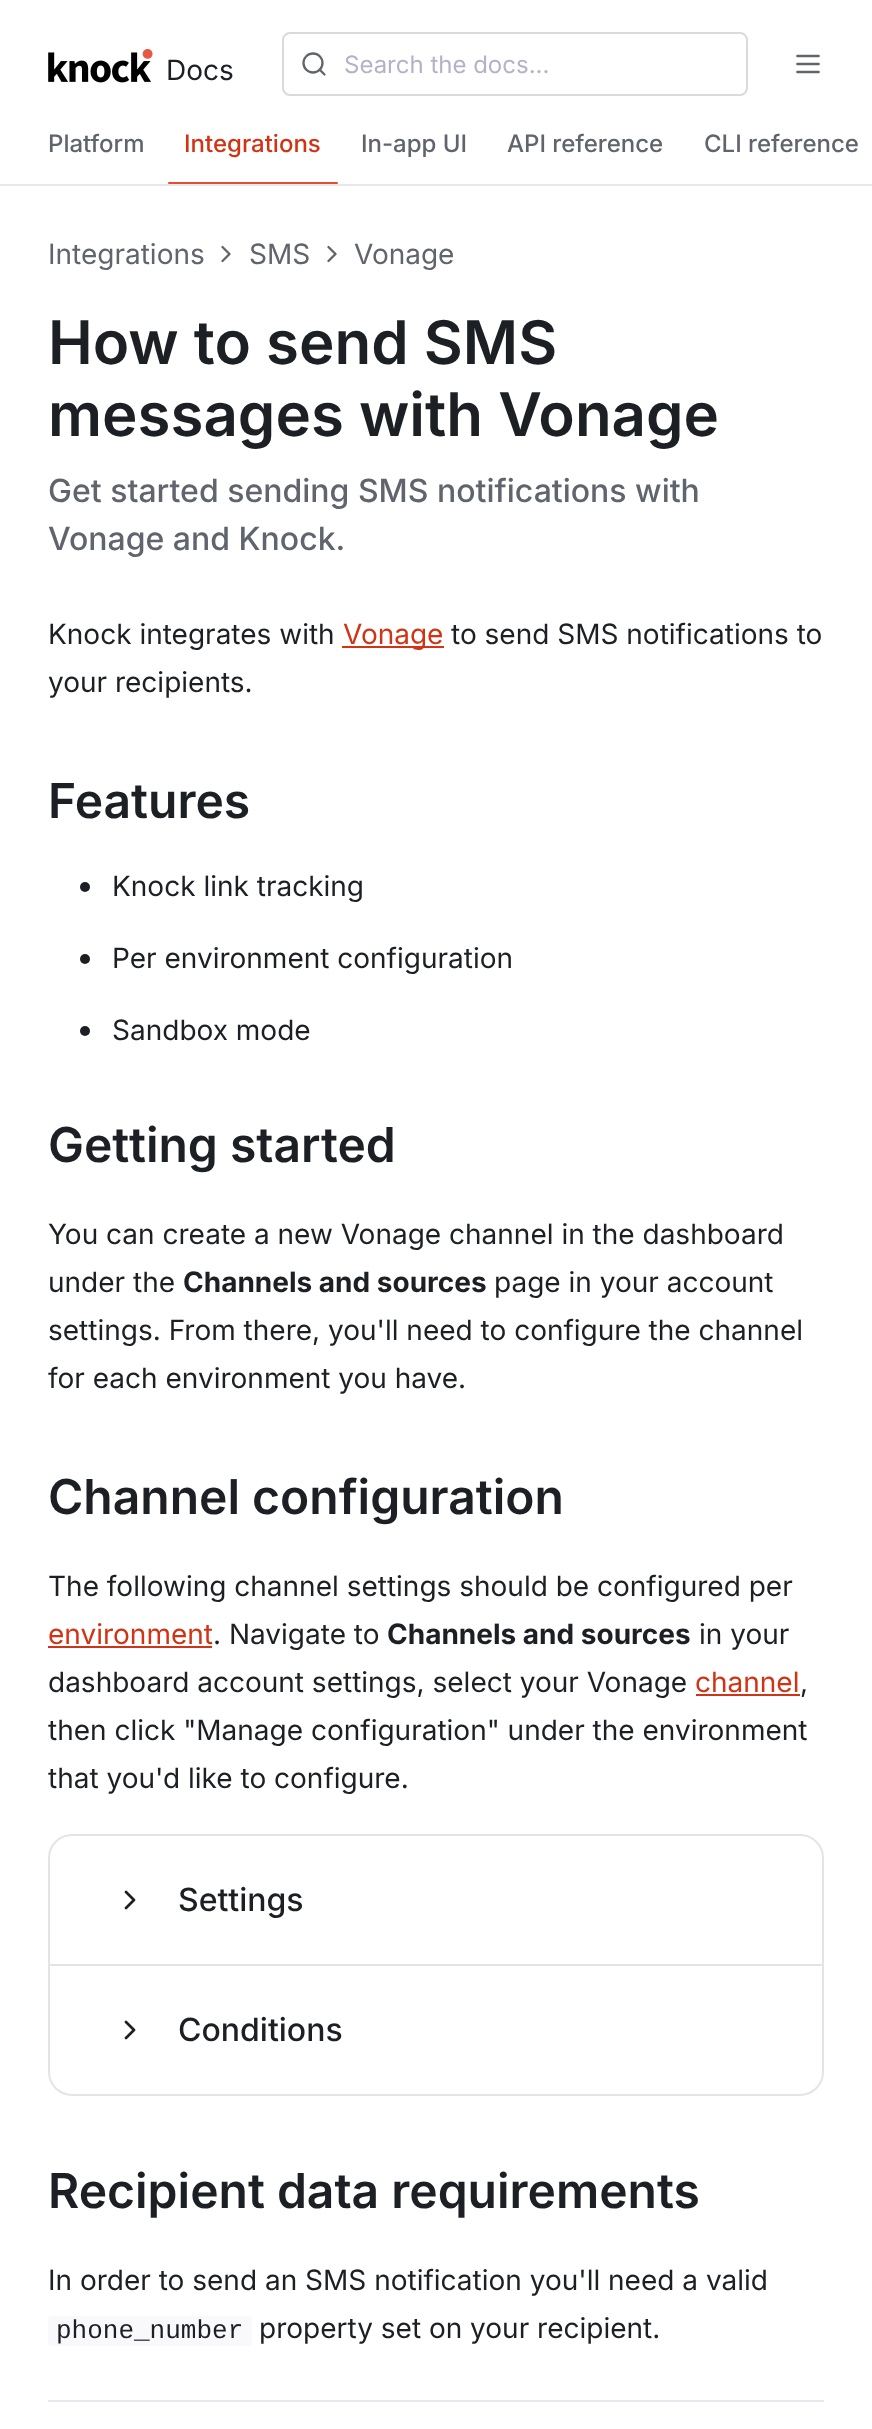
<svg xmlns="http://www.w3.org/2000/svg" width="872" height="2429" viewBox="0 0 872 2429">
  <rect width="100%" height="100%" fill="#ffffff"/>
  <rect x="0" y="184" width="872" height="2" fill="#e8e8ec"/>
  <image x="48" y="49" width="105" height="34" href="img1.png"/>
  <text x="166" y="80" font-family="Inter" font-size="28" fill="#1c2024">Docs</text>
  <rect x="283" y="33" width="464" height="62" rx="7" fill="none" stroke="#d9d9e0" stroke-width="2"/>
  <path d="M324.5 74.5L319.5 69.5" fill="none" stroke="#60646c" stroke-width="2.3" stroke-linecap="round" stroke-linejoin="round"/>
  <circle cx="313" cy="63" r="9.5" fill="none" stroke="#60646c" stroke-width="2.3"/>
  <text x="344" y="73" font-family="Inter" font-size="24" fill="#b3b2c8">Search the docs...</text>
  <path d="M797.5 64H818.5M797.5 72H818.5M797.5 56H818.5" fill="none" stroke="#60646c" stroke-width="2.7" stroke-linecap="round" stroke-linejoin="round"/>
  <text x="48" y="152" font-family="Inter" font-size="24" font-weight="500" fill="#60646c">Platform</text>
  <text x="184" y="152" font-family="Inter" font-size="24" font-weight="500" fill="#d13415">Integrations</text>
  <rect x="168" y="182" width="170" height="2" rx="1" fill="#e54d2e"/>
  <text x="361" y="152" font-family="Inter" font-size="24" font-weight="500" fill="#60646c">In-app UI</text>
  <text x="507" y="152" font-family="Inter" font-size="24" font-weight="500" fill="#60646c">API reference</text>
  <text x="704" y="152" font-family="Inter" font-size="24" font-weight="500" fill="#60646c">CLI reference</text>
  <text x="48" y="264" font-family="Inter" font-size="28" fill="#60646c">Integrations</text>
  <path d="M222.5 261L229.5 254L222.5 247" fill="none" stroke="#60646c" stroke-width="2.3" stroke-linecap="round" stroke-linejoin="round"/>
  <text x="249" y="264" font-family="Inter" font-size="28" fill="#60646c">SMS</text>
  <path d="M328.5 261L335.5 254L328.5 247" fill="none" stroke="#60646c" stroke-width="2.3" stroke-linecap="round" stroke-linejoin="round"/>
  <text x="354" y="264" font-family="Inter" font-size="28" fill="#60646c">Vonage</text>
  <text x="48" y="364" font-family="Inter" font-size="60" font-weight="600" fill="#1c2024">How to send SMS</text>
  <text x="48" y="436" font-family="Inter" font-size="60" font-weight="600" fill="#1c2024">messages with Vonage</text>
  <text x="48" y="502" font-family="Inter" font-size="32" font-weight="500" fill="#60646c">Get started sending SMS notifications with</text>
  <text x="48" y="550" font-family="Inter" font-size="32" font-weight="500" fill="#60646c">Vonage and Knock.</text>
  <text x="48" y="644" font-family="Inter" font-size="28" fill="#1c2024">Knock integrates with</text>
  <rect x="342" y="646" width="102" height="2" fill="#d13415"/>
  <text x="343" y="644" font-family="Inter" font-size="28" fill="#d13415">Vonage</text>
  <text x="451" y="644" font-family="Inter" font-size="28" fill="#1c2024">to send SMS notifications to</text>
  <text x="48" y="692" font-family="Inter" font-size="28" fill="#1c2024">your recipients.</text>
  <text x="48" y="818" font-family="Inter" font-size="48" font-weight="600" fill="#1c2024">Features</text>
  <circle cx="85" cy="887" r="5" fill="#1c2024"/>
  <text x="112" y="896" font-family="Inter" font-size="28" fill="#1c2024">Knock link tracking</text>
  <circle cx="85" cy="959" r="5" fill="#1c2024"/>
  <text x="112" y="968" font-family="Inter" font-size="28" fill="#1c2024">Per environment configuration</text>
  <circle cx="85" cy="1031" r="5" fill="#1c2024"/>
  <text x="112" y="1040" font-family="Inter" font-size="28" fill="#1c2024">Sandbox mode</text>
  <text x="48" y="1162" font-family="Inter" font-size="48" font-weight="600" fill="#1c2024">Getting started</text>
  <text x="48" y="1244" font-family="Inter" font-size="28" fill="#1c2024">You can create a new Vonage channel in the dashboard</text>
  <text x="48" y="1292" font-family="Inter" font-size="28" fill="#1c2024">under the</text>
  <text x="183" y="1292" font-family="Inter" font-size="28" font-weight="bold" fill="#1c2024">Channels and sources</text>
  <text x="494" y="1292" font-family="Inter" font-size="28" fill="#1c2024">page in your account</text>
  <text x="48" y="1340" font-family="Inter" font-size="28" fill="#1c2024">settings. From there, you'll need to configure the channel</text>
  <text x="48" y="1388" font-family="Inter" font-size="28" fill="#1c2024">for each environment you have.</text>
  <text x="48" y="1514" font-family="Inter" font-size="48" font-weight="600" fill="#1c2024">Channel configuration</text>
  <text x="48" y="1596" font-family="Inter" font-size="28" fill="#1c2024">The following channel settings should be configured per</text>
  <text x="48" y="1644" font-family="Inter" font-size="28" fill="#d13415">environment</text>
  <rect x="48" y="1646" width="164" height="2" fill="#d13415"/>
  <text x="213" y="1644" font-family="Inter" font-size="28" fill="#1c2024">. Navigate to</text>
  <text x="387" y="1644" font-family="Inter" font-size="28" font-weight="bold" fill="#1c2024">Channels and sources</text>
  <text x="699" y="1644" font-family="Inter" font-size="28" fill="#1c2024">in your</text>
  <text x="48" y="1692" font-family="Inter" font-size="28" fill="#1c2024">dashboard account settings, select your Vonage</text>
  <text x="695" y="1692" font-family="Inter" font-size="28" fill="#d13415">channel</text>
  <rect x="696" y="1694" width="104" height="2" fill="#d13415"/>
  <text x="800" y="1692" font-family="Inter" font-size="28" fill="#1c2024">,</text>
  <text x="48" y="1740" font-family="Inter" font-size="28" fill="#1c2024">then click "Manage configuration" under the environment</text>
  <text x="48" y="1788" font-family="Inter" font-size="28" fill="#1c2024">that you'd like to configure.</text>
  <rect x="49" y="1835" width="774" height="260" rx="23" fill="none" stroke="#e4e4e7" stroke-width="2"/>
  <path d="M126 1908L134 1900L126 1892" fill="none" stroke="#1c2024" stroke-width="2.7" stroke-linecap="round" stroke-linejoin="round"/>
  <text x="178" y="1911" font-family="Inter" font-size="32" font-weight="500" fill="#1c2024">Settings</text>
  <rect x="50" y="1964" width="772" height="2" fill="#e4e4e7"/>
  <path d="M126 2038L134 2030L126 2022" fill="none" stroke="#1c2024" stroke-width="2.7" stroke-linecap="round" stroke-linejoin="round"/>
  <text x="178" y="2041" font-family="Inter" font-size="32" font-weight="500" fill="#1c2024">Conditions</text>
  <text x="48" y="2208" font-family="Inter" font-size="48" font-weight="600" fill="#1c2024">Recipient data requirements</text>
  <text x="48" y="2290" font-family="Inter" font-size="28" fill="#1c2024">In order to send an SMS notification you'll need a valid</text>
  <rect x="48" y="2316" width="204" height="30" rx="4" fill="#f9f9fb"/>
  <text x="56" y="2338" font-family="Liberation Mono" font-size="26" fill="#1c2024">phone_number</text>
  <text x="259" y="2338" font-family="Inter" font-size="28" fill="#1c2024">property set on your recipient.</text>
  <rect x="48" y="2400" width="776" height="2" fill="#e8e8ec"/>
</svg>
